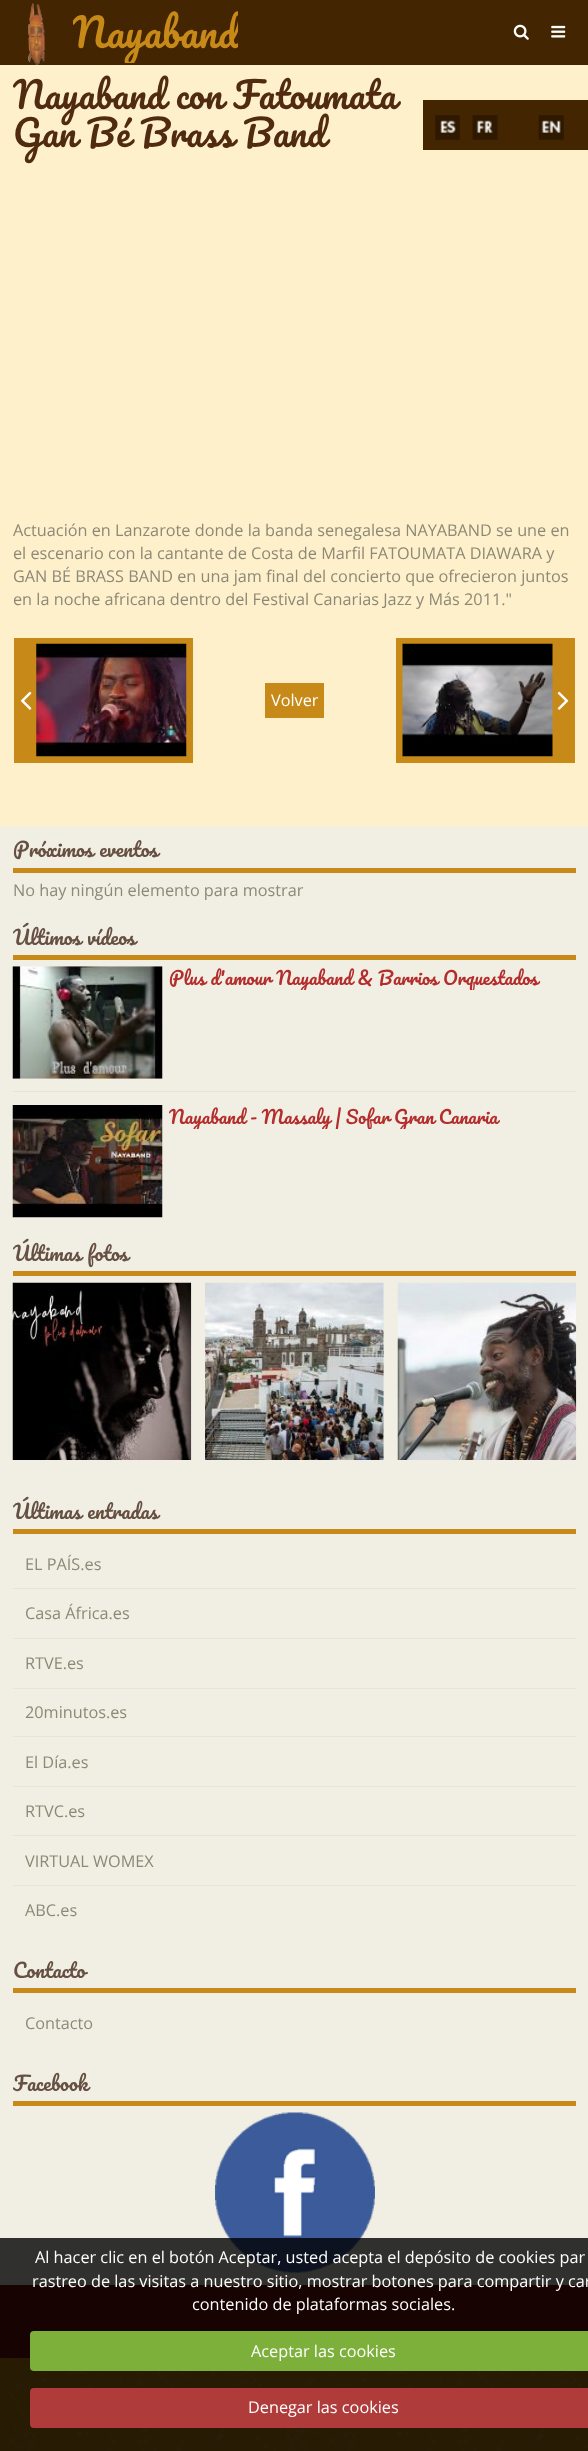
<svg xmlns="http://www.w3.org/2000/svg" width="588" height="2451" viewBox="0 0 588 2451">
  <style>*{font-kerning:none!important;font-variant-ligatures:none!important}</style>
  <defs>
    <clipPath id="clip1"><rect x="73" y="0" width="165" height="63"/></clipPath>
    <clipPath id="clip2"><rect x="169" y="966" width="407" height="24"/></clipPath>
    <clipPath id="clip3"><rect x="169" y="1105" width="407" height="24"/></clipPath>
  </defs>
  <rect width="100%" height="100%" fill="#c78917"/>
  <image x="0" y="2359" width="588" height="92" href="img1.png"/>
  <rect x="0" y="0" width="588" height="65" fill="#432501"/>
  <image x="28" y="3" width="18" height="62" href="img2.png"/>
  <g clip-path="url(#clip1)">
    <text x="72" y="48" font-family="Pacifico" font-size="39" fill="#c78917">Nayaband</text>
  </g>
  <image x="513" y="24" width="16" height="16" href="img3.png"/>
  <image x="551" y="25" width="15" height="13" href="img4.png"/>
  <rect x="0" y="65" width="588" height="761" fill="#fff0cc"/>
  <text x="13" y="109" word-spacing="1" font-family="Pacifico" font-size="35.75" fill="#502b10">Nayaband con Fatoumata</text>
  <text x="13" y="147" word-spacing="0.5" font-family="Pacifico" font-size="35.75" fill="#502b10">Gan Bé Brass Band</text>
  <text x="13" y="536" font-family="Open Sans" font-size="16.25" fill="#8c8976">Actuación en Lanzarote donde la banda senegalesa NAYABAND se une en</text>
  <text x="13" y="559" font-family="Open Sans" font-size="16.25" fill="#8c8976">el escenario con la cantante de Costa de Marfil FATOUMATA DIAWARA y</text>
  <text x="13" y="582" font-family="Open Sans" font-size="16.25" fill="#8c8976">GAN BÉ BRASS BAND en una jam final del concierto que ofrecieron juntos</text>
  <text x="13" y="605" font-family="Open Sans" font-size="16.25" fill="#8c8976">en la noche africana dentro del Festival Canarias Jazz y Más 2011."</text>
  <rect x="14" y="638" width="179" height="125" fill="#c78917"/>
  <image x="20" y="691" width="12" height="19" href="img5.png"/>
  <image x="36" y="643" width="151" height="114" href="img6.png"/>
  <rect x="265" y="683" width="59" height="35" fill="#c78917"/>
  <text x="271" y="706" font-family="Open Sans" font-size="16.25" fill="#ffffff">Volver</text>
  <rect x="396" y="638" width="179" height="125" fill="#c78917"/>
  <image x="402" y="643" width="151" height="114" href="img7.png"/>
  <image x="557" y="691" width="12" height="19" href="img8.png"/>
  <rect x="0" y="826" width="588" height="1459" fill="#f1efe3"/>
  <rect x="13" y="868" width="563" height="5" fill="#c78917"/>
  <text x="13" y="857" word-spacing="1" font-family="Pacifico" font-size="19.5" fill="#665043">Próximos eventos</text>
  <text x="13" y="896" font-family="Open Sans" font-size="16.25" fill="#8c8976">No hay ningún elemento para mostrar</text>
  <rect x="13" y="955" width="563" height="5" fill="#c78917"/>
  <text x="13" y="945" word-spacing="1" font-family="Pacifico" font-size="19.5" fill="#665043">Últimos vídeos</text>
  <rect x="13" y="1091" width="563" height="1" fill="#e7e4dd"/>
  <image x="12" y="966" width="151" height="113" href="img9.png"/>
  <g clip-path="url(#clip2)">
    <text x="169" y="985" word-spacing="0.5" font-family="Pacifico" font-size="17.9" fill="#b42d2d">Plus d'amour Nayaband &amp; Barrios Orquestados</text>
  </g>
  <image x="12" y="1105" width="151" height="113" href="img10.png"/>
  <g clip-path="url(#clip3)">
    <text x="169" y="1124" font-family="Pacifico" font-size="17.9" fill="#b42d2d">Nayaband - Massaly | Sofar Gran Canaria</text>
  </g>
  <rect x="13" y="1271" width="563" height="5" fill="#c78917"/>
  <text x="13" y="1261" word-spacing="1" font-family="Pacifico" font-size="19.5" fill="#665043">Últimas fotos</text>
  <image x="12" y="1282" width="180" height="178" href="img11.png"/>
  <image x="205" y="1282" width="179" height="178" href="img12.png"/>
  <image x="397" y="1282" width="180" height="178" href="img13.png"/>
  <rect x="13" y="1529" width="563" height="5" fill="#c78917"/>
  <text x="13" y="1519" word-spacing="1" font-family="Pacifico" font-size="19.5" fill="#665043">Últimas entradas</text>
  <rect x="13" y="1588" width="563" height="1" fill="#e7e4dd"/>
  <text x="25" y="1570" font-family="Open Sans" font-size="16.25" fill="#8c8976">EL PAÍS.es</text>
  <rect x="13" y="1638" width="563" height="1" fill="#e7e4dd"/>
  <text x="25" y="1619" font-family="Open Sans" font-size="16.25" fill="#8c8976">Casa África.es</text>
  <rect x="13" y="1688" width="563" height="1" fill="#e7e4dd"/>
  <text x="25" y="1669" font-family="Open Sans" font-size="16.25" fill="#8c8976">RTVE.es</text>
  <rect x="13" y="1736" width="563" height="1" fill="#e7e4dd"/>
  <text x="25" y="1718" font-family="Open Sans" font-size="16.25" fill="#8c8976">20minutos.es</text>
  <rect x="13" y="1786" width="563" height="1" fill="#e7e4dd"/>
  <text x="25" y="1768" font-family="Open Sans" font-size="16.25" fill="#8c8976">El Día.es</text>
  <rect x="13" y="1835" width="563" height="1" fill="#e7e4dd"/>
  <text x="25" y="1817" font-family="Open Sans" font-size="16.25" fill="#8c8976">RTVC.es</text>
  <rect x="13" y="1885" width="563" height="1" fill="#e7e4dd"/>
  <text x="25" y="1867" font-family="Open Sans" font-size="16.25" fill="#8c8976">VIRTUAL WOMEX</text>
  <text x="25" y="1916" font-family="Open Sans" font-size="16.25" fill="#8c8976">ABC.es</text>
  <rect x="13" y="1988" width="563" height="5" fill="#c78917"/>
  <text x="13" y="1978" font-family="Pacifico" font-size="19.5" fill="#665043">Contacto</text>
  <text x="25" y="2029" font-family="Open Sans" font-size="16.25" fill="#8c8976">Contacto</text>
  <rect x="13" y="2101" width="563" height="5" fill="#c78917"/>
  <text x="13" y="2091" font-family="Pacifico" font-size="19.5" fill="#665043">Facebook</text>
  <image x="215" y="2112" width="160" height="161" href="img14.png"/>
  <rect x="423" y="100" width="165" height="50" fill="#432501"/>
  <image x="472" y="115" width="26" height="25" href="img15.png"/>
  <image x="538" y="115" width="26" height="25" href="img16.png"/>
  <image x="435" y="115" width="25" height="25" href="img17.png"/>
  <rect x="0" y="2285" width="588" height="73" fill="#72100d"/>
  <rect x="0" y="2238" width="588" height="213" fill="#000000" fill-opacity="0.8"/>
  <text x="35" y="2263" font-family="Open Sans" font-size="16.25" fill="#ffffff">Al hacer clic en el botón Aceptar, usted acepta el depósito de cookies par</text>
  <text x="32" y="2287" font-family="Open Sans" font-size="16.25" fill="#ffffff">rastreo de las visitas a nuestro sitio, mostrar botones para compartir y car</text>
  <text x="192" y="2310" font-family="Open Sans" font-size="16.25" fill="#ffffff">contenido de plataformas sociales.</text>
  <rect x="30" y="2331" width="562" height="40" rx="4" fill="#7daf3b"/>
  <text x="251" y="2357" font-family="Open Sans" font-size="16.25" fill="#ffffff">Aceptar las cookies</text>
  <rect x="30" y="2388" width="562" height="40" rx="4" fill="#af3b3b"/>
  <text x="248" y="2413" font-family="Open Sans" font-size="16.25" fill="#ffffff">Denegar las cookies</text>
</svg>
